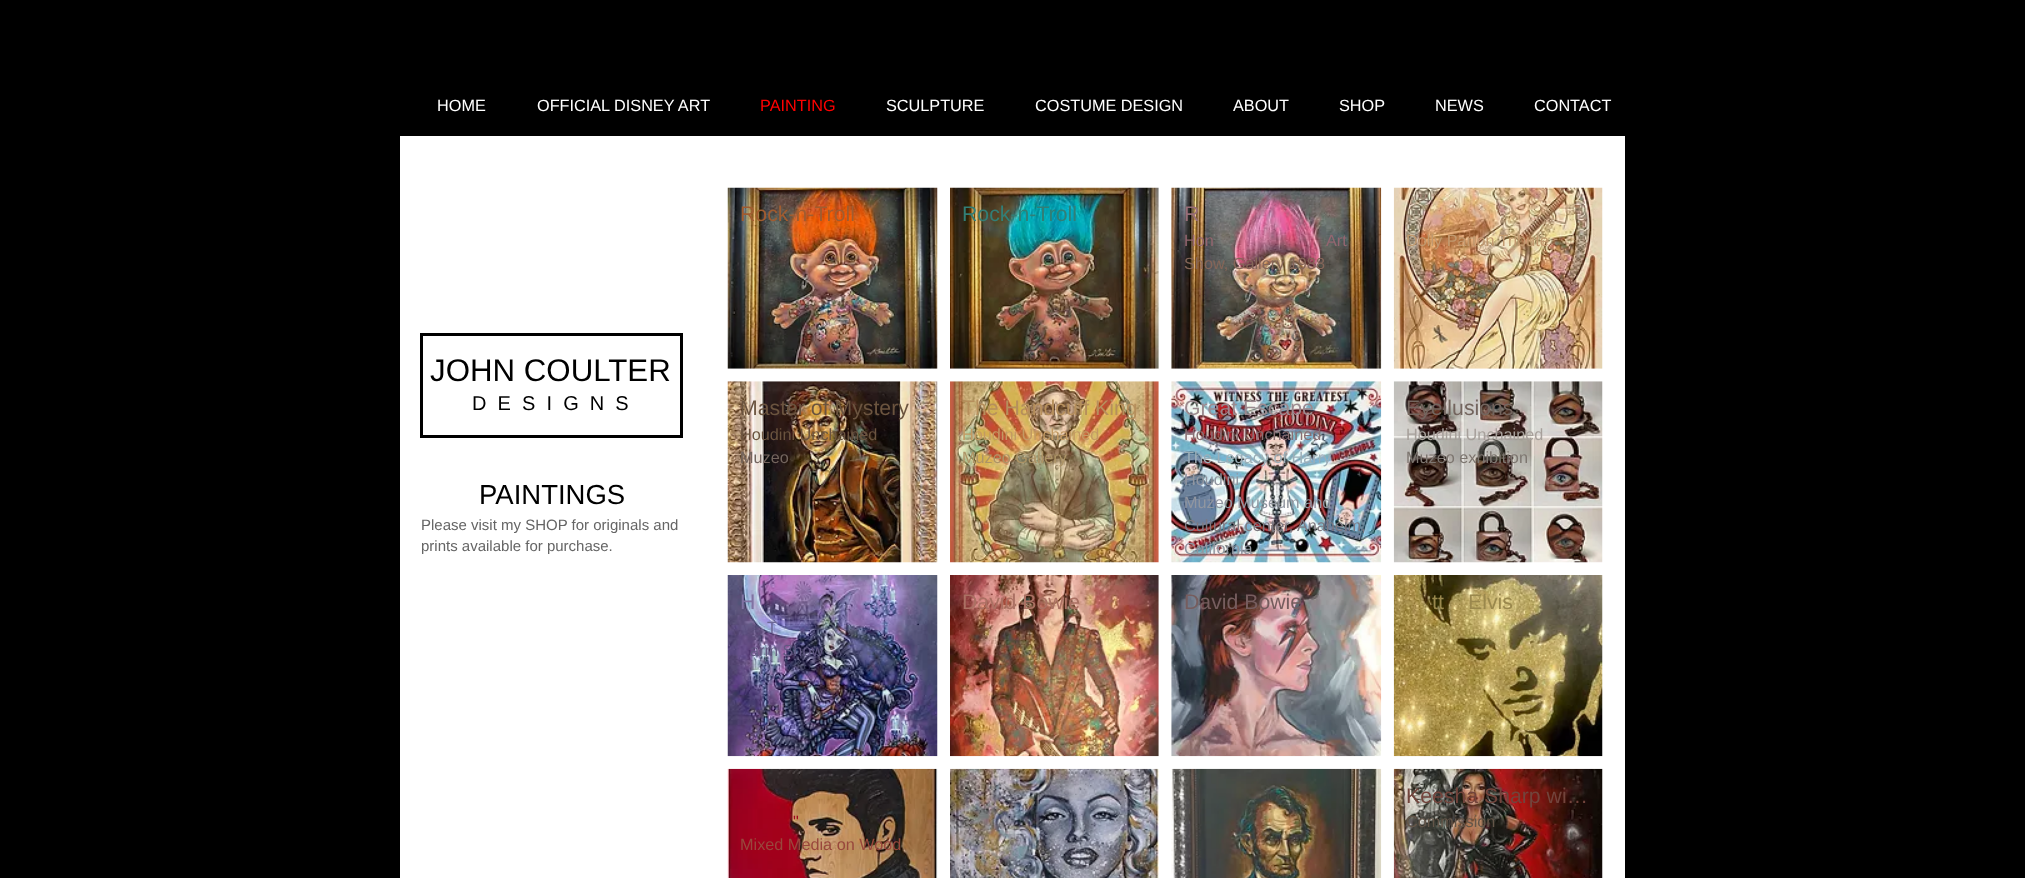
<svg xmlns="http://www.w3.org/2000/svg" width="2025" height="878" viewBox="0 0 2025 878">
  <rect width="100%" height="100%" fill="#000000"/>
  <text x="437" y="111" font-family="Liberation Sans" font-size="16.25" fill="#ffffff">HOME</text>
  <text x="537" y="111" font-family="Liberation Sans" font-size="16.25" fill="#ffffff">OFFICIAL DISNEY ART</text>
  <text x="760" y="111" font-family="Liberation Sans" font-size="16.25" fill="#ff0000">PAINTING</text>
  <text x="886" y="111" font-family="Liberation Sans" font-size="16.25" fill="#ffffff">SCULPTURE</text>
  <text x="1035" y="111" font-family="Liberation Sans" font-size="16.25" fill="#ffffff">COSTUME DESIGN</text>
  <text x="1233" y="111" font-family="Liberation Sans" font-size="16.25" fill="#ffffff">ABOUT</text>
  <text x="1339" y="111" font-family="Liberation Sans" font-size="16.25" fill="#ffffff">SHOP</text>
  <text x="1435" y="111" font-family="Liberation Sans" font-size="16.25" fill="#ffffff">NEWS</text>
  <text x="1534" y="111" font-family="Liberation Sans" font-size="16.25" fill="#ffffff">CONTACT</text>
  <rect x="400" y="136" width="1225" height="742" fill="#ffffff"/>
  <rect x="421.5" y="334.5" width="260" height="102" fill="none" stroke="#000000" stroke-width="3"/>
  <image x="727" y="187" width="211" height="182" href="img1.png"/>
  <text x="740" y="221" font-family="Liberation Sans" font-size="21.25" fill="#a15c30">Rock-n-Troll</text>
  <image x="950" y="187" width="209" height="182" href="img2.png"/>
  <text x="962" y="221" font-family="Liberation Sans" font-size="21.25" fill="#327e76">Rock-n-Troll</text>
  <image x="1171" y="187" width="211" height="182" href="img3.png"/>
  <text x="1184" y="221" font-family="Liberation Sans" font-size="21.25" fill="#986d77">R</text>
  <text x="1184" y="246" font-family="Liberation Sans" font-size="16.25" fill="#946670">Hon</text>
  <text x="1326" y="246" font-family="Liberation Sans" font-size="16.25" fill="#946670">Art</text>
  <text x="1184" y="269" font-family="Liberation Sans" font-size="16.25" fill="#856659">Show, Gallery 1988</text>
  <image x="1393" y="187" width="210" height="182" href="img4.png"/>
  <text x="1406" y="246" font-family="Liberation Sans" font-size="16.25" fill="#c1996f">Dolly Parton Tribute</text>
  <image x="727" y="381" width="211" height="182" href="img5.png"/>
  <text x="740" y="415" font-family="Liberation Sans" font-size="21.25" fill="#6b543f">Master of Mystery</text>
  <text x="740" y="440" font-family="Liberation Sans" font-size="16.25" fill="#6b543f">Houdini Unchained</text>
  <text x="740" y="463" font-family="Liberation Sans" font-size="16.25" fill="#73655e">Muzeo</text>
  <image x="950" y="381" width="209" height="182" href="img6.png"/>
  <text x="962" y="415" font-family="Liberation Sans" font-size="21.25" fill="#b68f5c">The Handcuff King</text>
  <text x="962" y="440" font-family="Liberation Sans" font-size="16.25" fill="#c39a63">Houdini Unchained</text>
  <text x="962" y="463" font-family="Liberation Sans" font-size="16.25" fill="#ad9466">Muzeo Gallery</text>
  <image x="1171" y="381" width="211" height="182" href="img7.png"/>
  <text x="1184" y="415" font-family="Liberation Sans" font-size="21.25" fill="#9b8a8f">Great Escape</text>
  <text x="1184" y="440" font-family="Liberation Sans" font-size="16.25" fill="#896f73">Houdini Unchained</text>
  <text x="1184" y="463" font-family="Liberation Sans" font-size="16.25" fill="#9caeb7">The Legacy of Harry</text>
  <text x="1184" y="485" font-family="Liberation Sans" font-size="16.25" fill="#9196a0">Houdini</text>
  <text x="1184" y="508" font-family="Liberation Sans" font-size="16.25" fill="#9196a0">Muzeo Museum and</text>
  <text x="1184" y="531" font-family="Liberation Sans" font-size="16.25" fill="#7e7982">Cultural center, Anaheim,</text>
  <text x="1184" y="554" font-family="Liberation Sans" font-size="16.25" fill="#9196a0">California</text>
  <image x="1393" y="381" width="210" height="182" href="img8.png"/>
  <text x="1406" y="415" font-family="Liberation Sans" font-size="21.25" fill="#73655e">Eyellusions</text>
  <text x="1406" y="440" font-family="Liberation Sans" font-size="16.25" fill="#a7a09b">Houdini Unchained</text>
  <text x="1406" y="463" font-family="Liberation Sans" font-size="16.25" fill="#7d7670">Muzeo exhibition</text>
  <image x="727" y="575" width="211" height="182" href="img9.png"/>
  <text x="740" y="609" font-family="Liberation Sans" font-size="21.25" fill="#8072a2">H</text>
  <text x="767" y="633" font-family="Liberation Sans" font-size="16.25" fill="#6c6895">T</text>
  <text x="750" y="656" font-family="Liberation Sans" font-size="16.25" fill="#625982">arm Show</text>
  <image x="950" y="575" width="209" height="182" href="img10.png"/>
  <text x="962" y="609" font-family="Liberation Sans" font-size="21.25" fill="#ab7163">David Bowie</text>
  <image x="1171" y="575" width="211" height="182" href="img11.png"/>
  <text x="1184" y="609" font-family="Liberation Sans" font-size="21.25" fill="#765d5e">David Bowie</text>
  <image x="1393" y="575" width="210" height="182" href="img12.png"/>
  <text x="1432" y="609" font-family="Liberation Sans" font-size="21.25" fill="#9a884d">tt</text>
  <text x="1468" y="609" font-family="Liberation Sans" font-size="21.25" fill="#9a884d">Elvis</text>
  <image x="950" y="768" width="209" height="110" href="img13.png"/>
  <image x="1171" y="768" width="211" height="110" href="img14.png"/>
  <image x="1393" y="768" width="210" height="110" href="img15.png"/>
  <text x="1406" y="803" font-family="Liberation Sans" font-size="21.25" fill="#72443c">Keesha Sharp wi…</text>
  <text x="1406" y="827" font-family="Liberation Sans" font-size="16.25" fill="#645649">Commission</text>
  <image x="727" y="768" width="211" height="110" href="img16.png"/>
  <text x="793" y="827" font-family="Liberation Sans" font-size="16.25" fill="#a00920">"</text>
  <text x="740" y="850" font-family="Liberation Sans" font-size="16.25" fill="#99473c">Mixed Media on Wood</text>
  <text x="430" y="381" font-family="Liberation Sans" font-size="31.25" fill="#000000">JOHN COULTER</text>
  <text x="472" y="410" font-family="Liberation Sans" font-size="20" fill="#000000" xml:space="preserve">D  E  S  I  G  N  S</text>
  <text x="479" y="504" font-family="Liberation Sans" font-size="27.5" fill="#000000">PAINTINGS</text>
  <text x="421" y="530" font-family="Liberation Sans" font-size="15" fill="#656565">Please visit my SHOP for originals and</text>
  <text x="421" y="551" font-family="Liberation Sans" font-size="15" fill="#656565">prints available for purchase.</text>
</svg>
